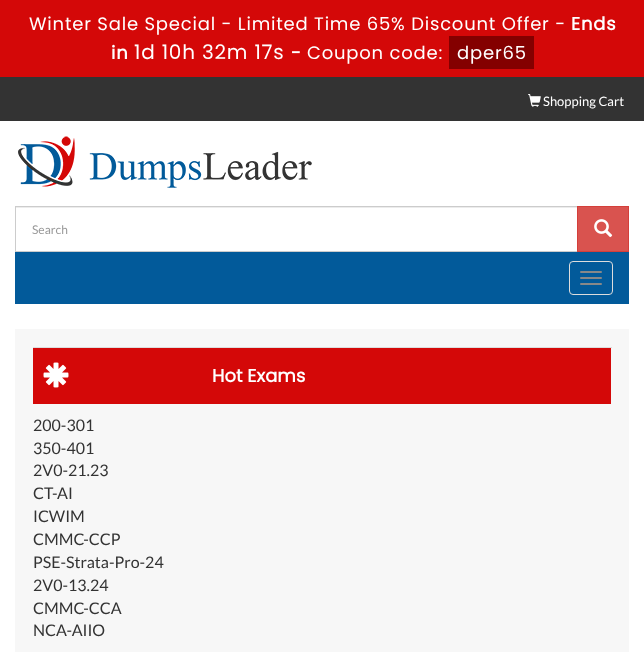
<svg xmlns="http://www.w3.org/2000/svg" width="644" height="652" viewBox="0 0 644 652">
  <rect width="100%" height="100%" fill="#ffffff"/>
  <rect x="0" y="0" width="644" height="77" fill="#d40808"/>
  <text x="29" y="30" font-family="Poppins" font-size="18" letter-spacing="0.8" fill="#ffffff">Winter Sale Special - Limited Time 65% Discount Offer -</text>
  <text x="571" y="30" font-family="Poppins" font-size="18" font-weight="bold" letter-spacing="0.8" fill="#ffffff">Ends</text>
  <text x="111" y="59" font-family="Poppins" font-size="18" font-weight="bold" letter-spacing="0.8" fill="#ffffff">in</text>
  <text x="134" y="59" font-family="Poppins" font-size="20" letter-spacing="0.8" fill="#ffffff">1d 10h 32m 17s</text>
  <text x="291" y="59" font-family="Poppins" font-size="18" font-weight="bold" letter-spacing="0.8" fill="#ffffff">-</text>
  <text x="307" y="59" font-family="Poppins" font-size="18" letter-spacing="0.8" fill="#ffffff">Coupon code:</text>
  <rect x="449" y="36" width="85" height="33" fill="#840000"/>
  <text x="457" y="59" font-family="Poppins" font-size="18" letter-spacing="0.8" fill="#ffffff">dper65</text>
  <rect x="0" y="77" width="644" height="44" fill="#333333"/>
  <image x="528" y="94" width="13" height="13" href="img1.png"/>
  <text x="543" y="106" font-family="Lato" font-size="13" fill="#ffffff">Shopping Cart</text>
  <image x="18" y="136" width="294" height="52" href="img2.png"/>
  <rect x="16" y="207" width="561" height="1" fill="#ececec"/>
  <rect x="15.5" y="206.5" width="562" height="45" fill="none" stroke="#cccccc"/>
  <text x="32" y="234" font-family="Lato" font-size="12" fill="#999999">Search</text>
  <rect x="577.5" y="206.5" width="51" height="45" fill="#d9534f" stroke="#d43f3a"/>
  <image x="594" y="219" width="19" height="19" href="img3.png"/>
  <rect x="15" y="252" width="614" height="52" fill="#025a9a"/>
  <rect x="569.5" y="261.5" width="43" height="33" rx="3.5" fill="none" stroke="#dddddd"/>
  <rect x="580" y="271" width="22" height="2" rx="1" fill="#888888"/>
  <rect x="580" y="277" width="22" height="2" rx="1" fill="#888888"/>
  <rect x="580" y="283" width="22" height="2" rx="1" fill="#888888"/>
  <rect x="15" y="329" width="614" height="323" fill="#f7f7f7"/>
  <rect x="33" y="348" width="578" height="56" fill="#d40808"/>
  <image x="43" y="362" width="26" height="26" href="img4.png"/>
  <rect x="33" y="347" width="579" height="1" fill="#dddddd"/>
  <text x="212" y="382" font-family="Poppins" font-size="18" font-weight="bold" fill="#ffffff">Hot Exams</text>
  <text x="33" y="431" font-family="Lato" font-size="16" fill="#333333">200-301</text>
  <text x="33" y="454" font-family="Lato" font-size="16" fill="#333333">350-401</text>
  <text x="33" y="476" font-family="Lato" font-size="16" fill="#333333">2V0-21.23</text>
  <text x="33" y="499" font-family="Lato" font-size="16" fill="#333333">CT-AI</text>
  <text x="33" y="522" font-family="Lato" font-size="16" fill="#333333">ICWIM</text>
  <text x="33" y="545" font-family="Lato" font-size="16" fill="#333333">CMMC-CCP</text>
  <text x="33" y="568" font-family="Lato" font-size="16" fill="#333333">PSE-Strata-Pro-24</text>
  <text x="33" y="591" font-family="Lato" font-size="16" fill="#333333">2V0-13.24</text>
  <text x="33" y="614" font-family="Lato" font-size="16" fill="#333333">CMMC-CCA</text>
  <text x="33" y="636" font-family="Lato" font-size="16" fill="#333333">NCA-AIIO</text>
</svg>
